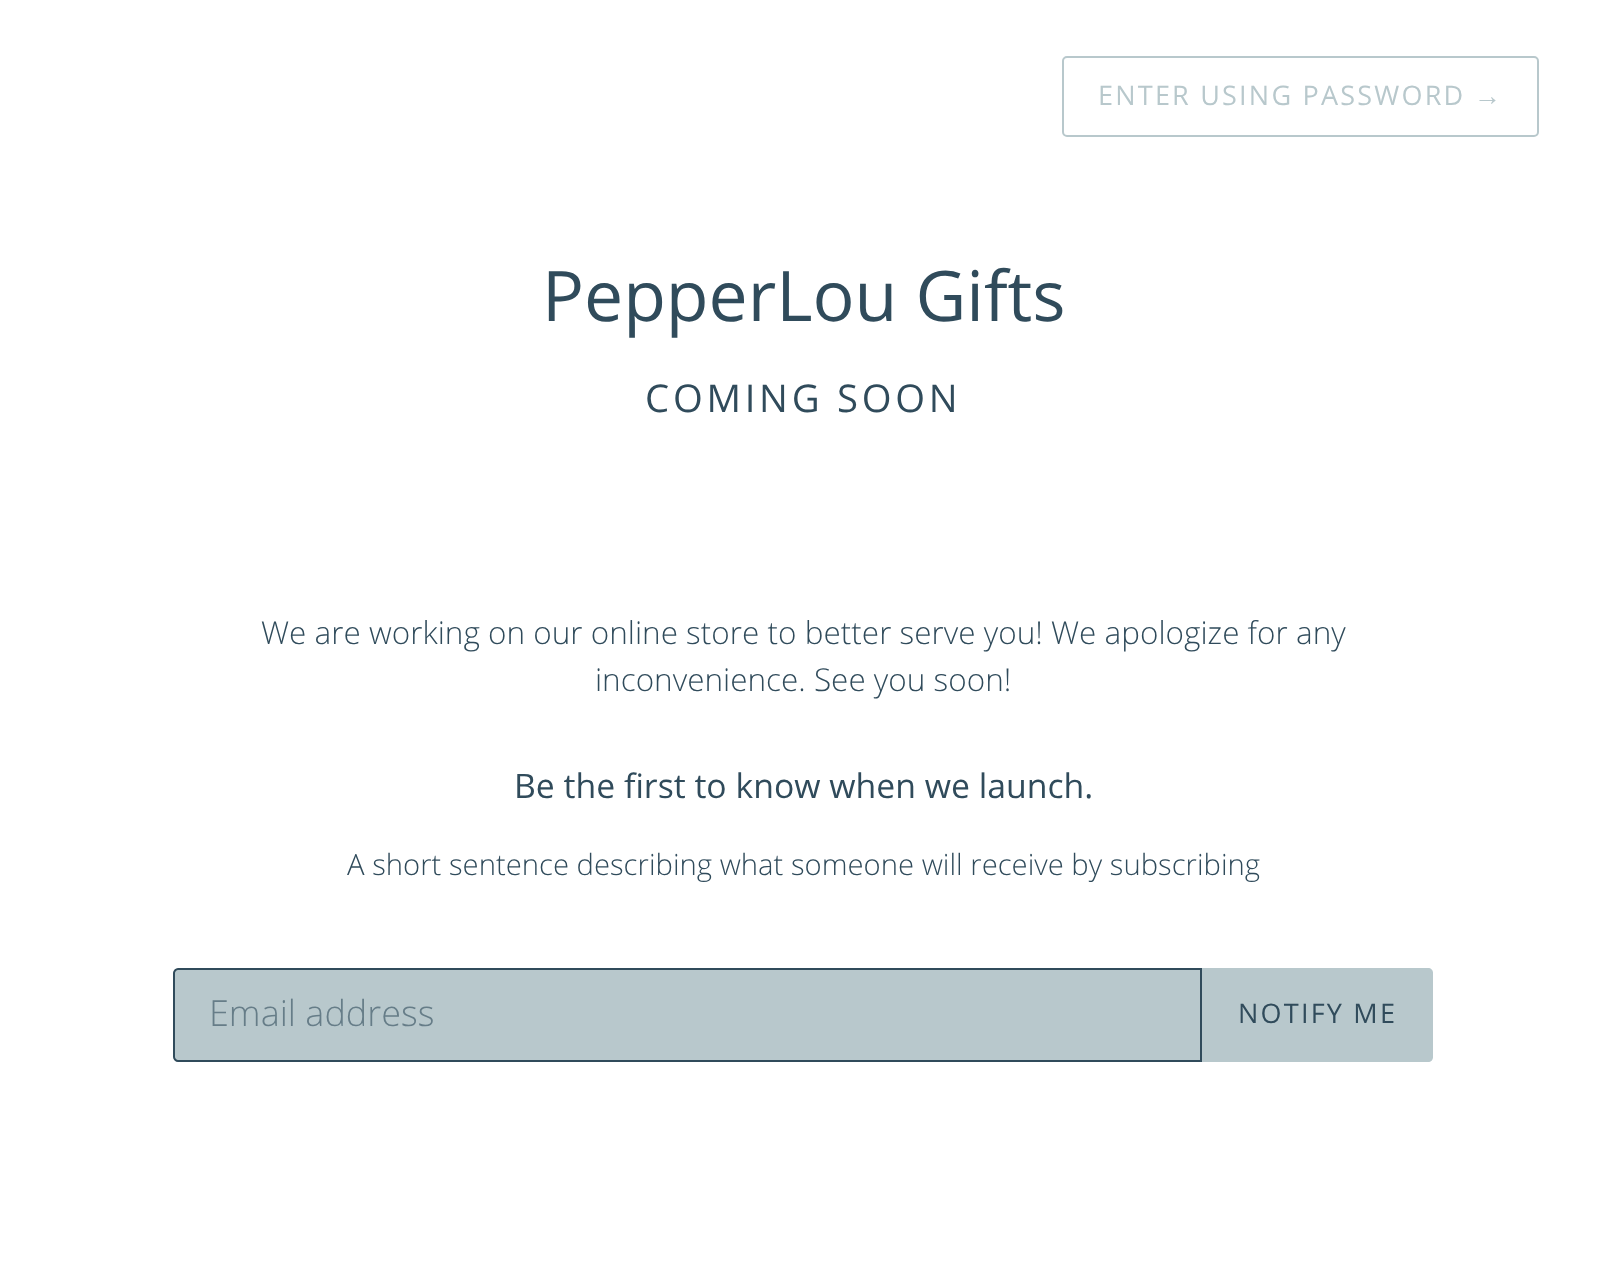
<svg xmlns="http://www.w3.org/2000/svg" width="1605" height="1284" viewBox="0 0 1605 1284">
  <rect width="100%" height="100%" fill="#ffffff"/>
  <rect x="1063" y="57" width="475" height="79" rx="4" fill="none" stroke="#b8c8cc" stroke-width="2"/>
  <text x="1098" y="105" font-family="Open Sans" font-size="27" letter-spacing="2.2" fill="#b8c8cc">ENTER USING PASSWORD</text>
  <text x="1474" y="105" font-family="Liberation Sans" font-size="27" letter-spacing="2.2" fill="#b8c8cc">→</text>
  <text x="542" y="321" font-family="Open Sans" font-size="69.75" fill="#304b5b">PepperLou Gifts</text>
  <text x="645" y="412" font-family="Open Sans" font-size="38.25" letter-spacing="3.75" fill="#304b5b">COMING SOON</text>
  <text x="261" y="644" font-family="Open Sans" font-size="31.5" font-weight="300" fill="#304b5b">We are working on our online store to better serve you! We apologize for any</text>
  <text x="595" y="691" font-family="Open Sans" font-size="31.5" font-weight="300" fill="#304b5b">inconvenience. See you soon!</text>
  <text x="514" y="798" font-family="Open Sans" font-size="33.75" fill="#304b5b">Be the first to know when we launch.</text>
  <text x="347" y="875" font-family="Open Sans" font-size="29.25" font-weight="300" fill="#304b5b">A short sentence describing what someone will receive by subscribing</text>
  <path d="M178 969H1201V1061H178C176 1061 174 1059 174 1057V973C174 971 176 969 178 969Z" fill="#b8c8cc" stroke="#304b5b" stroke-width="2"/>
  <text x="209" y="1026" font-family="Open Sans" font-size="36" font-weight="300" fill="#667d88">Email address</text>
  <path d="M1202 968H1428C1431 968 1433 970 1433 973V1057C1433 1060 1431 1062 1428 1062H1202Z" fill="#b8c8cc"/>
  <text x="1238" y="1023" font-family="Open Sans" font-size="27" letter-spacing="2.2" fill="#304b5b">NOTIFY ME</text>
</svg>
